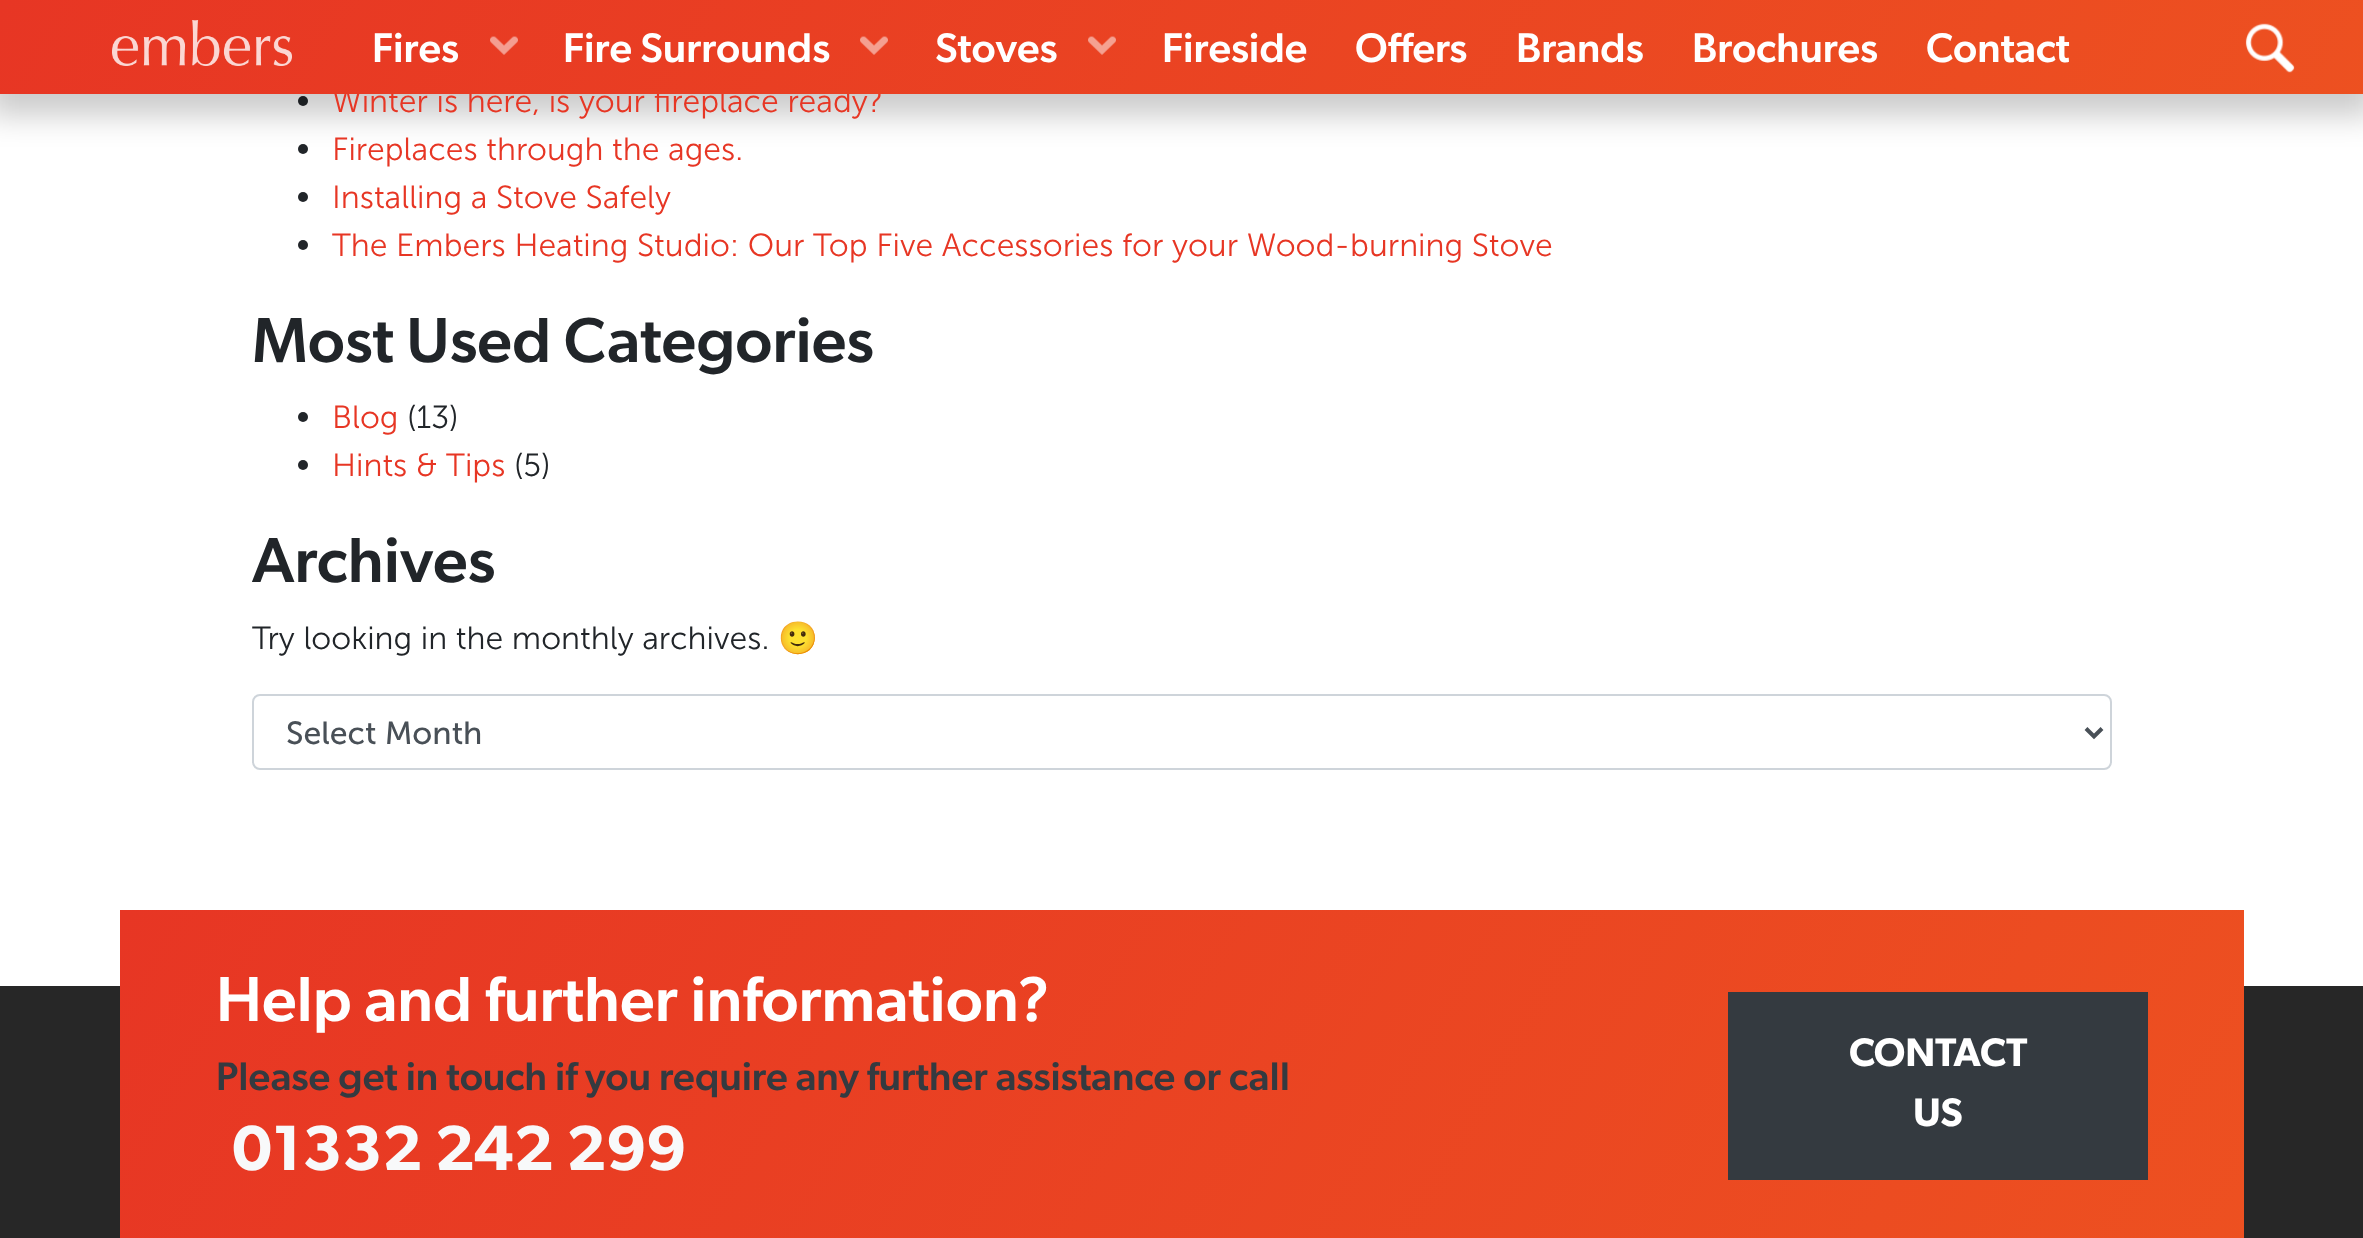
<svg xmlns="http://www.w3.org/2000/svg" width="2363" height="1238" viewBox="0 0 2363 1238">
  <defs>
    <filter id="blur1" x="-50%" y="-200%" width="200%" height="500%"><feGaussianBlur stdDeviation="15"/></filter>
    <linearGradient id="g1" gradientUnits="userSpaceOnUse" x1="1101" y1="-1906" x2="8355" y2="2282"><stop offset="0" stop-color="#e73624"/><stop offset="0.5" stop-color="#f36b1d"/><stop offset="1" stop-color="#e73624"/></linearGradient>
    <linearGradient id="g2" gradientUnits="userSpaceOnUse" x1="877" y1="-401" x2="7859" y2="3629"><stop offset="0" stop-color="#e73624"/><stop offset="0.5" stop-color="#f36b1d"/><stop offset="1" stop-color="#e73624"/></linearGradient>
  </defs>
  <rect width="100%" height="100%" fill="#ffffff"/>
  <circle cx="303" cy="101" r="5" fill="#212529"/>
  <circle cx="303" cy="149" r="5" fill="#212529"/>
  <rect x="-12" y="-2" width="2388" height="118" fill="#000000" fill-opacity="0.2" filter="url(#blur1)"/>
  <text x="332" y="112" font-family="'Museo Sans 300'" font-size="32" font-weight="300" fill="#e73624">Winter is here, is your fireplace ready?</text>
  <rect x="0" y="0" width="2363" height="94" fill="url(#g1)"/>
  <image x="112" y="20" width="180" height="46" href="img1.png"/>
  <text x="372" y="62" font-family="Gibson" font-size="41.5" font-weight="500" fill="#ffffff">Fires</text>
  <image x="490" y="36" width="28" height="19" href="img2.png"/>
  <text x="563" y="62" font-family="Gibson" font-size="41.5" font-weight="500" fill="#ffffff">Fire Surrounds</text>
  <image x="860" y="36" width="28" height="19" href="img3.png"/>
  <text x="935" y="62" font-family="Gibson" font-size="41.5" font-weight="500" fill="#ffffff">Stoves</text>
  <image x="1088" y="36" width="28" height="19" href="img4.png"/>
  <text x="1162" y="62" font-family="Gibson" font-size="41.5" font-weight="500" fill="#ffffff">Fireside</text>
  <text x="1355" y="62" font-family="Gibson" font-size="41.5" font-weight="500" fill="#ffffff">Offers</text>
  <text x="1516" y="62" font-family="Gibson" font-size="41.5" font-weight="500" fill="#ffffff">Brands</text>
  <text x="1692" y="62" font-family="Gibson" font-size="41.5" font-weight="500" fill="#ffffff">Brochures</text>
  <text x="1926" y="62" font-family="Gibson" font-size="41.5" font-weight="500" fill="#ffffff">Contact</text>
  <image x="2245" y="23" width="50" height="50" href="img5.png"/>
  <text x="332" y="160" font-family="'Museo Sans 300'" font-size="32" font-weight="300" fill="#e73624">Fireplaces through the ages.</text>
  <circle cx="303" cy="197" r="5" fill="#212529"/>
  <text x="332" y="208" font-family="'Museo Sans 300'" font-size="32" font-weight="300" fill="#e73624">Installing a Stove Safely</text>
  <circle cx="303" cy="245" r="5" fill="#212529"/>
  <text x="332" y="256" font-family="'Museo Sans 300'" font-size="32" font-weight="300" fill="#e73624">The Embers Heating Studio: Our Top Five Accessories for your Wood-burning Stove</text>
  <text x="252" y="362" font-family="Gibson" font-size="63.75" font-weight="500" fill="#212529">Most Used Categories</text>
  <circle cx="303" cy="417" r="5" fill="#212529"/>
  <text x="332" y="428" font-family="'Museo Sans 300'" font-size="32" font-weight="300" fill="#e73624">Blog</text>
  <text x="407" y="428" font-family="'Museo Sans 300'" font-size="32" font-weight="300" fill="#212529">(13)</text>
  <circle cx="303" cy="465" r="5" fill="#212529"/>
  <text x="332" y="476" font-family="'Museo Sans 300'" font-size="32" font-weight="300" fill="#e73624">Hints &amp; Tips</text>
  <text x="514" y="476" font-family="'Museo Sans 300'" font-size="32" font-weight="300" fill="#212529">(5)</text>
  <text x="252" y="582" font-family="Gibson" font-size="63.75" font-weight="500" fill="#212529">Archives</text>
  <text x="252" y="649" font-family="'Museo Sans 300'" font-size="32" font-weight="300" fill="#212529">Try looking in the monthly archives.</text>
  <text x="778" y="649" font-family="Noto Color Emoji" font-size="32" fill="#212529">🙂</text>
  <rect x="253" y="695" width="1858" height="74" rx="7" fill="none" stroke="#ced4da" stroke-width="2"/>
  <path d="M2086 728.5L2094 736.5L2102 728.5" fill="none" stroke="#495057" stroke-width="4"/>
  <text x="286" y="744" font-family="'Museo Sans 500'" font-size="32" fill="#495057">Select Month</text>
  <rect x="0" y="986" width="2363" height="252" fill="#272727"/>
  <rect x="120" y="910" width="2124" height="328" fill="url(#g2)"/>
  <text x="216" y="1021" font-family="Gibson" font-size="63.75" font-weight="500" fill="#ffffff">Help and further information?</text>
  <text x="216" y="1090" font-family="Gibson" font-size="40" font-weight="500" fill="#343a40">Please get in touch if you require any further assistance or call</text>
  <text x="232" y="1170" font-family="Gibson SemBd" font-size="64" font-weight="600" fill="#f8f9fa">01332 242 299</text>
  <rect x="1728" y="992" width="420" height="188" fill="#343a40"/>
  <text x="1849" y="1066" font-family="Gibson SemBd" font-size="40" font-weight="600" fill="#ffffff">CONTACT</text>
  <text x="1913" y="1126" font-family="Gibson SemBd" font-size="40" font-weight="600" fill="#ffffff">US</text>
</svg>
